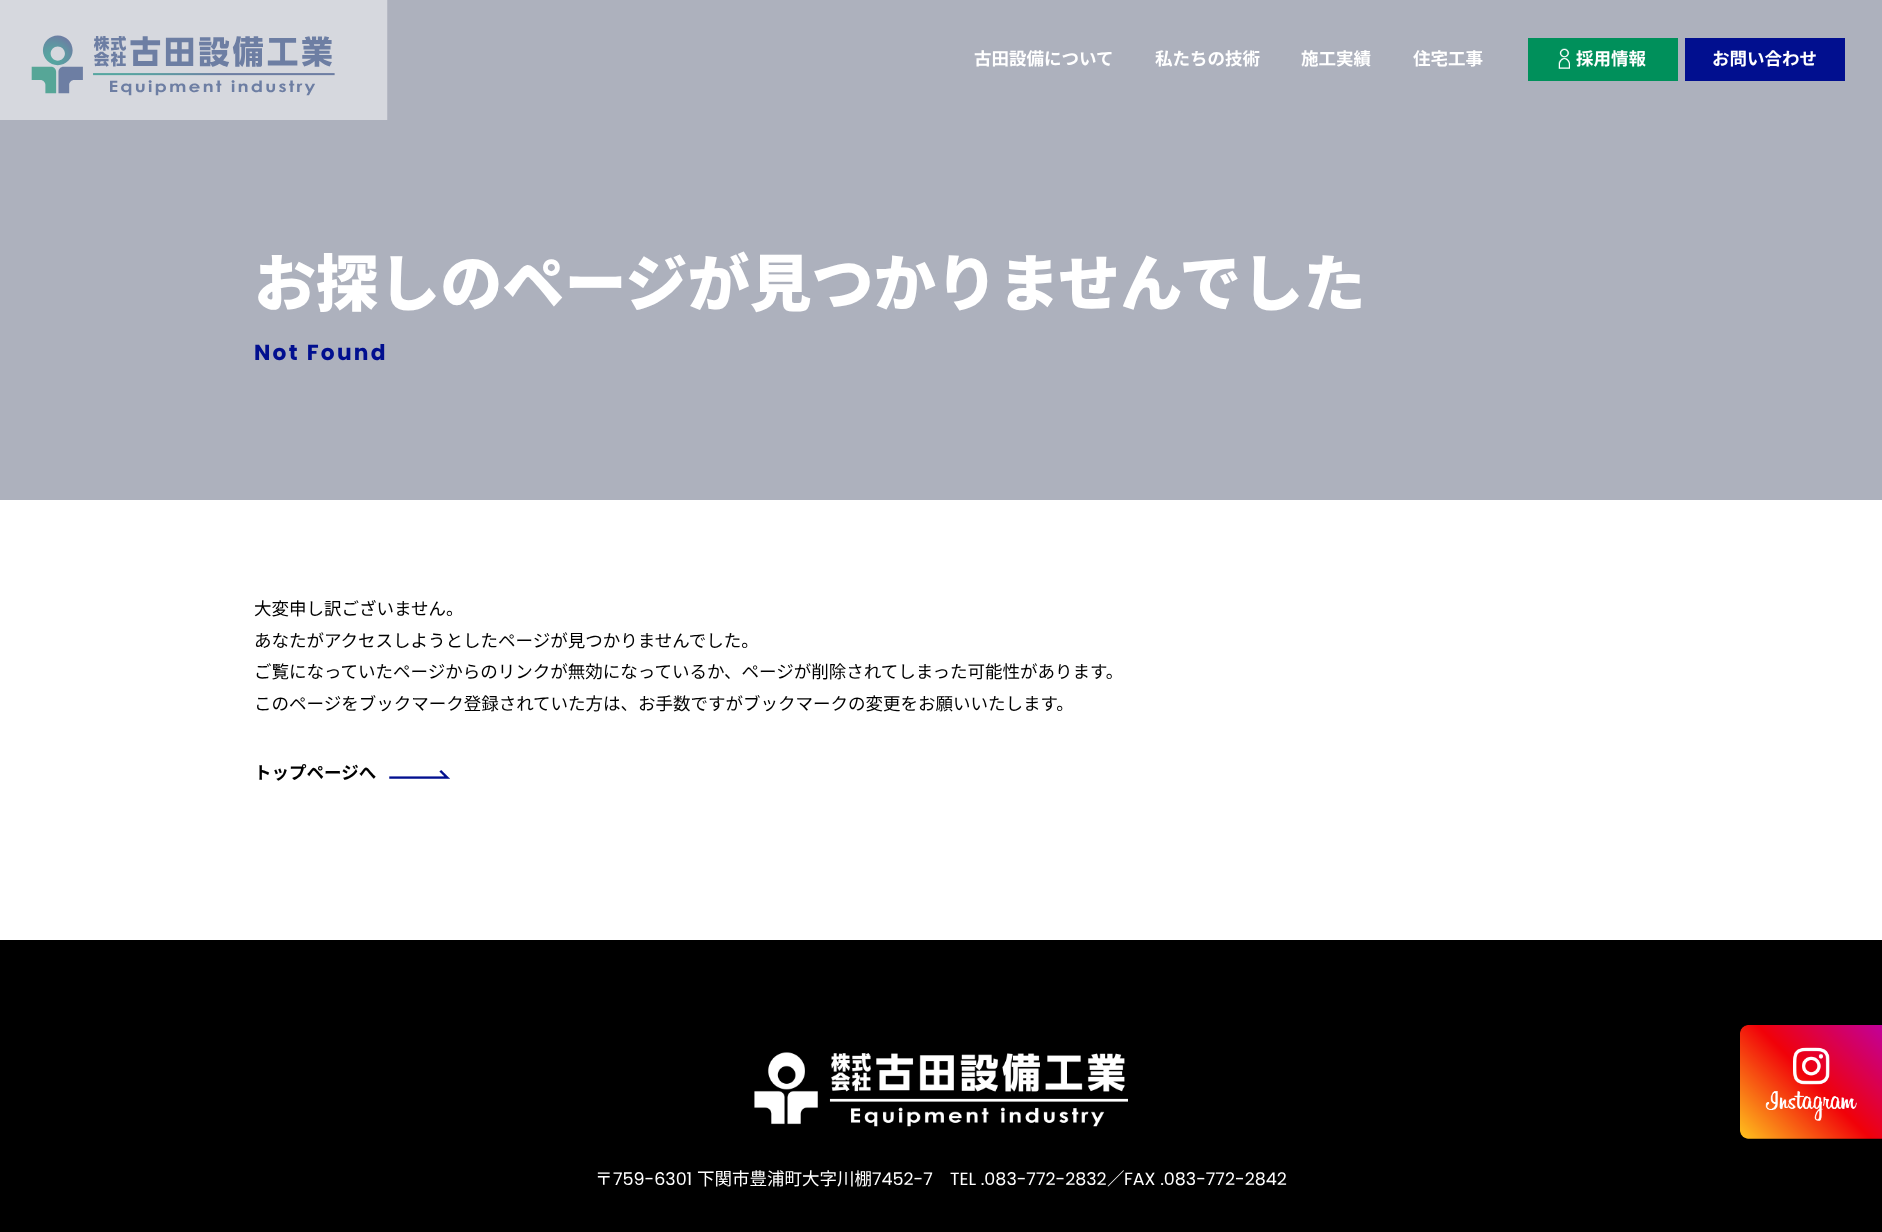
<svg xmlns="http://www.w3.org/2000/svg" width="1882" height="1232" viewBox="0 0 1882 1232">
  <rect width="100%" height="100%" fill="#ffffff"/>
  <rect x="0" y="0" width="1882" height="500" fill="#adb1bd"/>
  <image x="0" y="0" width="388" height="120" href="img1.png"/>
  <text x="974" y="65" font-family="Noto Sans JP" font-size="17.5" font-weight="bold" fill="#ffffff">古田設備について</text>
  <text x="1155" y="65" font-family="Noto Sans JP" font-size="17.5" font-weight="bold" fill="#ffffff">私たちの技術</text>
  <text x="1301" y="65" font-family="Noto Sans JP" font-size="17.5" font-weight="bold" fill="#ffffff">施工実績</text>
  <text x="1413" y="65" font-family="Noto Sans JP" font-size="17.5" font-weight="bold" fill="#ffffff">住宅工事</text>
  <rect x="1528" y="38" width="150" height="43" fill="#00905b"/>
  <image x="1558" y="48" width="12" height="21" href="img2.png"/>
  <text x="1576" y="65" font-family="Noto Sans JP" font-size="17.5" font-weight="bold" fill="#ffffff">採用情報</text>
  <rect x="1685" y="38" width="160" height="43" fill="#010f8f"/>
  <text x="1712" y="65" font-family="Noto Sans JP" font-size="17.5" font-weight="bold" fill="#ffffff">お問い合わせ</text>
  <text x="254" y="306" font-family="Noto Sans JP" font-size="62.1" font-weight="900" fill="#ffffff">お探しのページが見つかりませんでした</text>
  <text x="254" y="360" font-family="Poppins" font-size="21.75" font-weight="bold" letter-spacing="2.25" fill="#010f8f">Not Found</text>
  <text x="254" y="615" font-family="Noto Sans JP" font-size="17.5" fill="#000000">大変申し訳ございません。</text>
  <text x="254" y="647" font-family="Noto Sans JP" font-size="17.5" fill="#000000">あなたがアクセスしようとしたページが見つかりませんでした。</text>
  <text x="254" y="678" font-family="Noto Sans JP" font-size="17.5" fill="#000000">ご覧になっていたページからのリンクが無効になっているか、ページが削除されてしまった可能性があります。</text>
  <text x="254" y="710" font-family="Noto Sans JP" font-size="17.5" fill="#000000">このページをブックマーク登録されていた方は、お手数ですがブックマークの変更をお願いいたします。</text>
  <text x="254" y="779" font-family="Noto Sans JP" font-size="17.5" font-weight="bold" fill="#000000">トップページへ</text>
  <image x="389" y="770" width="61" height="9" href="img3.png"/>
  <rect x="0" y="940" width="1882" height="292" fill="#000000"/>
  <image x="1740" y="1025" width="142" height="114" href="img4.png"/>
  <image x="754" y="1052" width="374" height="75" href="img5.png"/>
  <text x="595" y="1185" font-family="Noto Sans JP" font-size="17.5" fill="#ffffff">〒</text>
  <text x="613" y="1185" font-family="Poppins" font-size="17.5" fill="#ffffff">759-6301</text>
  <text x="697" y="1185" font-family="Noto Sans JP" font-size="17.5" fill="#ffffff">下関市豊浦町大字川棚</text>
  <text x="872" y="1185" font-family="Poppins" font-size="17.5" fill="#ffffff">7452-7</text>
  <text x="950" y="1185" font-family="Poppins" font-size="17.5" fill="#ffffff">TEL .083-772-2832</text>
  <text x="1107" y="1185" font-family="Noto Sans JP" font-size="17.5" fill="#ffffff">／</text>
  <text x="1124" y="1185" font-family="Poppins" font-size="17.5" fill="#ffffff">FAX .083-772-2842</text>
</svg>
